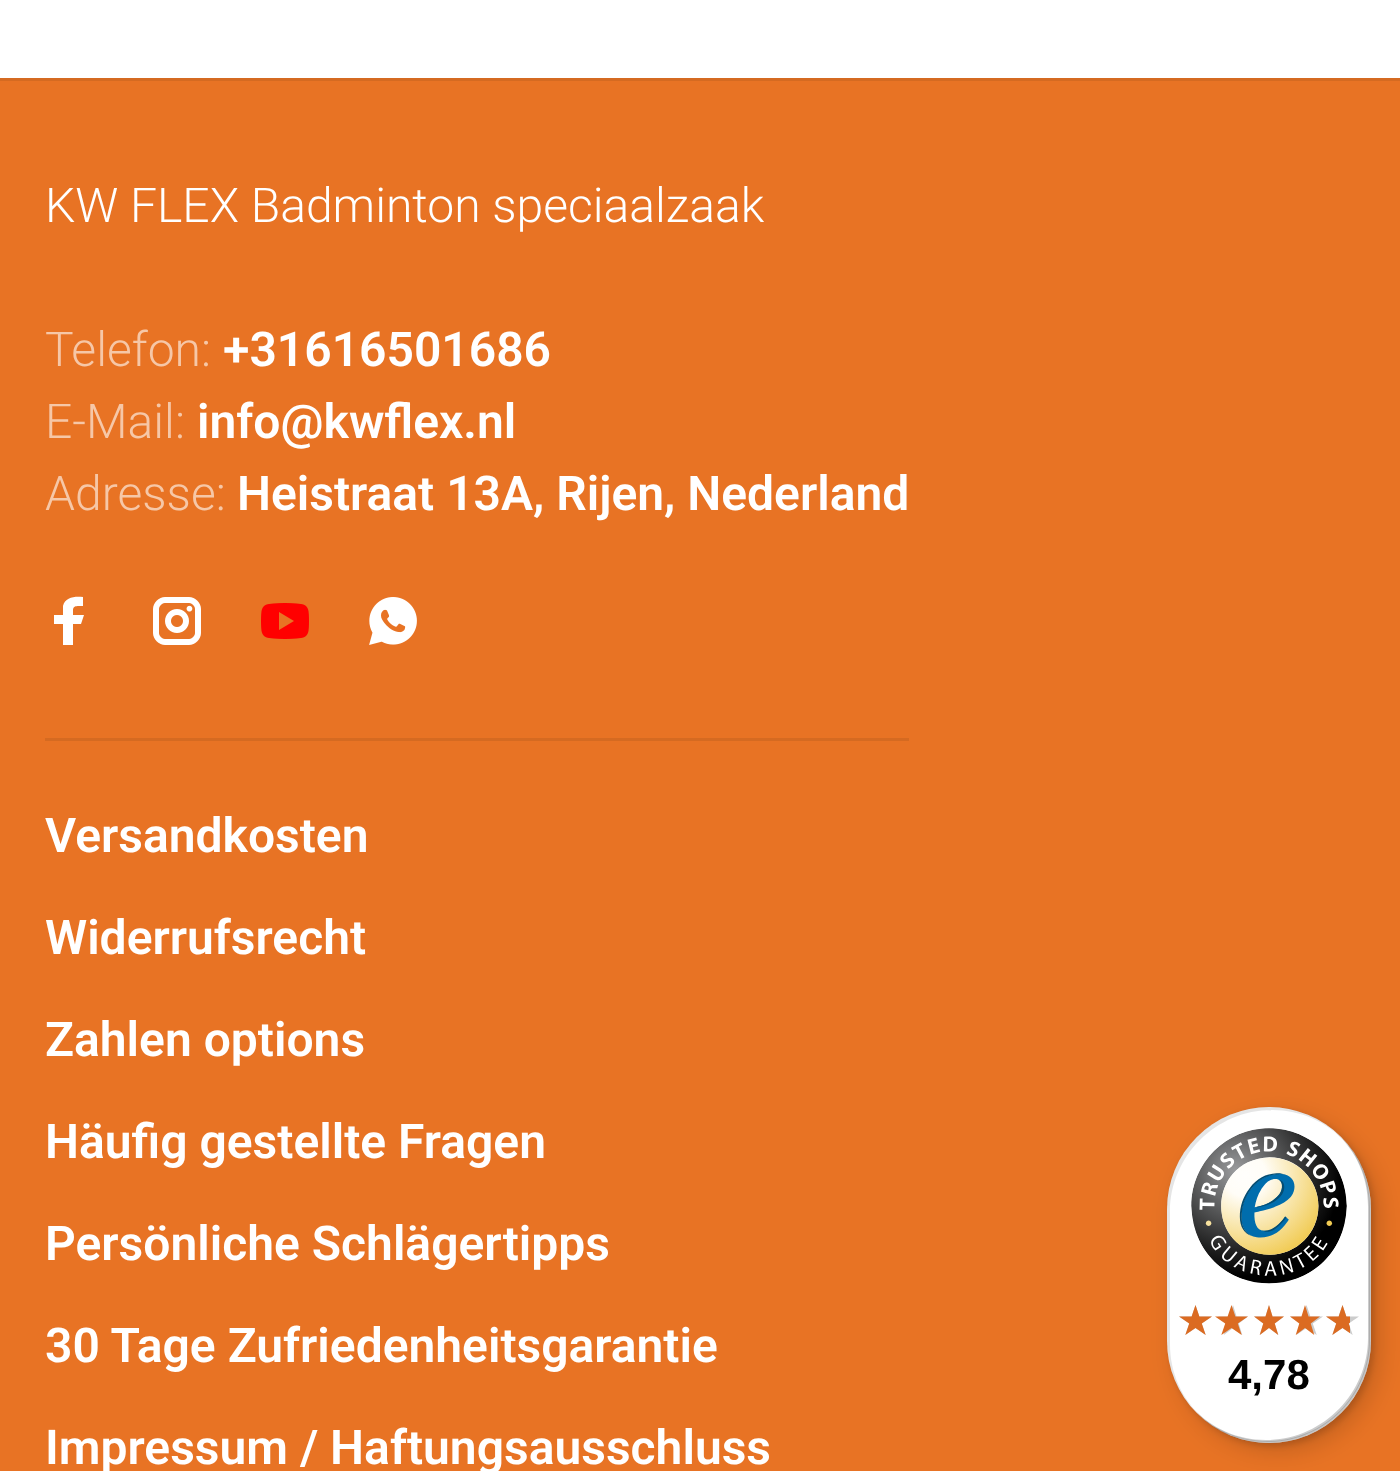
<svg xmlns="http://www.w3.org/2000/svg" width="1400" height="1471" viewBox="0 0 1400 1471">
  <defs>
    <filter id="blur1" x="-50%" y="-200%" width="200%" height="500%"><feGaussianBlur stdDeviation="12"/></filter>
    <filter id="blur2" x="-50%" y="-200%" width="200%" height="500%"><feGaussianBlur stdDeviation="3"/></filter>
  </defs>
  <rect width="100%" height="100%" fill="#ffffff"/>
  <rect x="0" y="81" width="1400" height="1390" fill="#e87324"/>
  <rect x="0" y="78" width="1400" height="3" fill="#d56a21"/>
  <text x="45" y="222" font-family="Roboto" font-size="48" font-weight="300" fill="#ffffff">KW FLEX Badminton speciaalzaak</text>
  <text x="45" y="366" font-family="Roboto" font-size="48" font-weight="300" fill="#f6c7a7">Telefon:</text>
  <text x="223" y="366" font-family="Roboto" font-size="48" font-weight="600" fill="#ffffff">+31616501686</text>
  <text x="45" y="438" font-family="Roboto" font-size="48" font-weight="300" fill="#f6c7a7">E-Mail:</text>
  <text x="197" y="438" font-family="Roboto" font-size="48" font-weight="600" fill="#ffffff">info@kwflex.nl</text>
  <text x="45" y="510" font-family="Roboto" font-size="48" font-weight="300" fill="#f6c7a7">Adresse:</text>
  <text x="237" y="510" font-family="Roboto" font-size="48" font-weight="600" fill="#ffffff">Heistraat 13A, Rijen, Nederland</text>
  <rect x="45" y="738" width="864" height="3" fill="#d56a21"/>
  <path d="M73 610C73 605 78 606 83 606V597C75 596 65 597 63 606V615H54V624H63V645H73V624H81L84 615H73Z" fill="#ffffff"/>
  <image x="153" y="597" width="48" height="48" href="img1.png"/>
  <image x="261" y="603" width="48" height="36" href="img2.png"/>
  <image x="369" y="597" width="48" height="48" href="img3.png"/>
  <text x="45" y="852" font-family="Roboto" font-size="48" font-weight="600" fill="#ffffff">Versandkosten</text>
  <text x="45" y="954" font-family="Roboto" font-size="48" font-weight="600" fill="#ffffff">Widerrufsrecht</text>
  <text x="45" y="1056" font-family="Roboto" font-size="48" font-weight="600" fill="#ffffff">Zahlen options</text>
  <text x="45" y="1158" font-family="Roboto" font-size="48" font-weight="600" fill="#ffffff">Häufig gestellte Fragen</text>
  <text x="45" y="1260" font-family="Roboto" font-size="48" font-weight="600" fill="#ffffff">Persönliche Schlägertipps</text>
  <text x="45" y="1362" font-family="Roboto" font-size="48" font-weight="600" fill="#ffffff">30 Tage Zufriedenheitsgarantie</text>
  <text x="45" y="1464" font-family="Roboto" font-size="48" font-weight="600" fill="#ffffff">Impressum / Haftungsausschluss</text>
  <rect x="1176" y="1116" width="204" height="336" rx="102" fill="#000000" fill-opacity="0.15" filter="url(#blur1)"/>
  <rect x="1170" y="1110" width="204" height="336" rx="102" fill="#000000" fill-opacity="0.15" filter="url(#blur2)"/>
  <rect x="1167" y="1107" width="204" height="336" rx="102" fill="#ffffff"/>
  <path d="M1272 1110C1301 1110 1327 1122 1345 1142C1327 1120 1299 1107 1269 1107C1213 1107 1167 1153 1167 1209V1341C1167 1371 1180 1399 1202 1417C1182 1399 1170 1373 1170 1344V1212C1170 1156 1216 1110 1272 1110Z" fill="#000000" fill-opacity="0.1"/>
  <path d="M1193 1408C1211 1430 1239 1443 1269 1443C1325 1443 1371 1397 1371 1341V1209C1371 1179 1358 1151 1336 1133C1356 1151 1368 1177 1368 1206V1338C1368 1394 1322 1440 1266 1440C1237 1440 1211 1428 1193 1408Z" fill="#000000" fill-opacity="0.2"/>
  <path d="M1198 1414C1216 1432 1241 1443 1269 1443C1325 1443 1371 1397 1371 1341V1209C1371 1181 1360 1156 1342 1138C1359 1156 1369 1181 1369 1207V1339C1369 1396 1324 1441 1267 1441C1241 1441 1216 1431 1198 1414Z" fill="#323232" fill-opacity="0.2"/>
  <path d="M1201 1417C1219 1433 1243 1443 1269 1443C1325 1443 1371 1397 1371 1341V1209C1371 1183 1361 1159 1345 1141C1361 1159 1370 1182 1370 1208V1340C1370 1396 1324 1442 1268 1442C1242 1442 1219 1433 1201 1417Z" fill="#ffffff" fill-opacity="0.3"/>
  <image x="1191" y="1128" width="156" height="156" href="img4.png"/>
  <image x="1179" y="1305" width="33" height="30" href="img5.png"/>
  <image x="1218" y="1305" width="30" height="30" href="img6.png"/>
  <image x="1254" y="1305" width="30" height="30" href="img6.png"/>
  <image x="1290" y="1305" width="33" height="30" href="img5.png"/>
  <image x="1326" y="1305" width="33" height="30" href="img5.png"/>
  <image x="1179" y="1305" width="33" height="30" href="img7.png"/>
  <image x="1215" y="1305" width="33" height="30" href="img8.png"/>
  <image x="1254" y="1305" width="30" height="30" href="img9.png"/>
  <image x="1290" y="1305" width="30" height="30" href="img10.png"/>
  <image x="1326" y="1305" width="24" height="30" href="img11.png"/>
  <text x="1228" y="1389" font-family="Liberation Sans" font-size="42" font-weight="bold" fill="#000000">4,78</text>
</svg>
